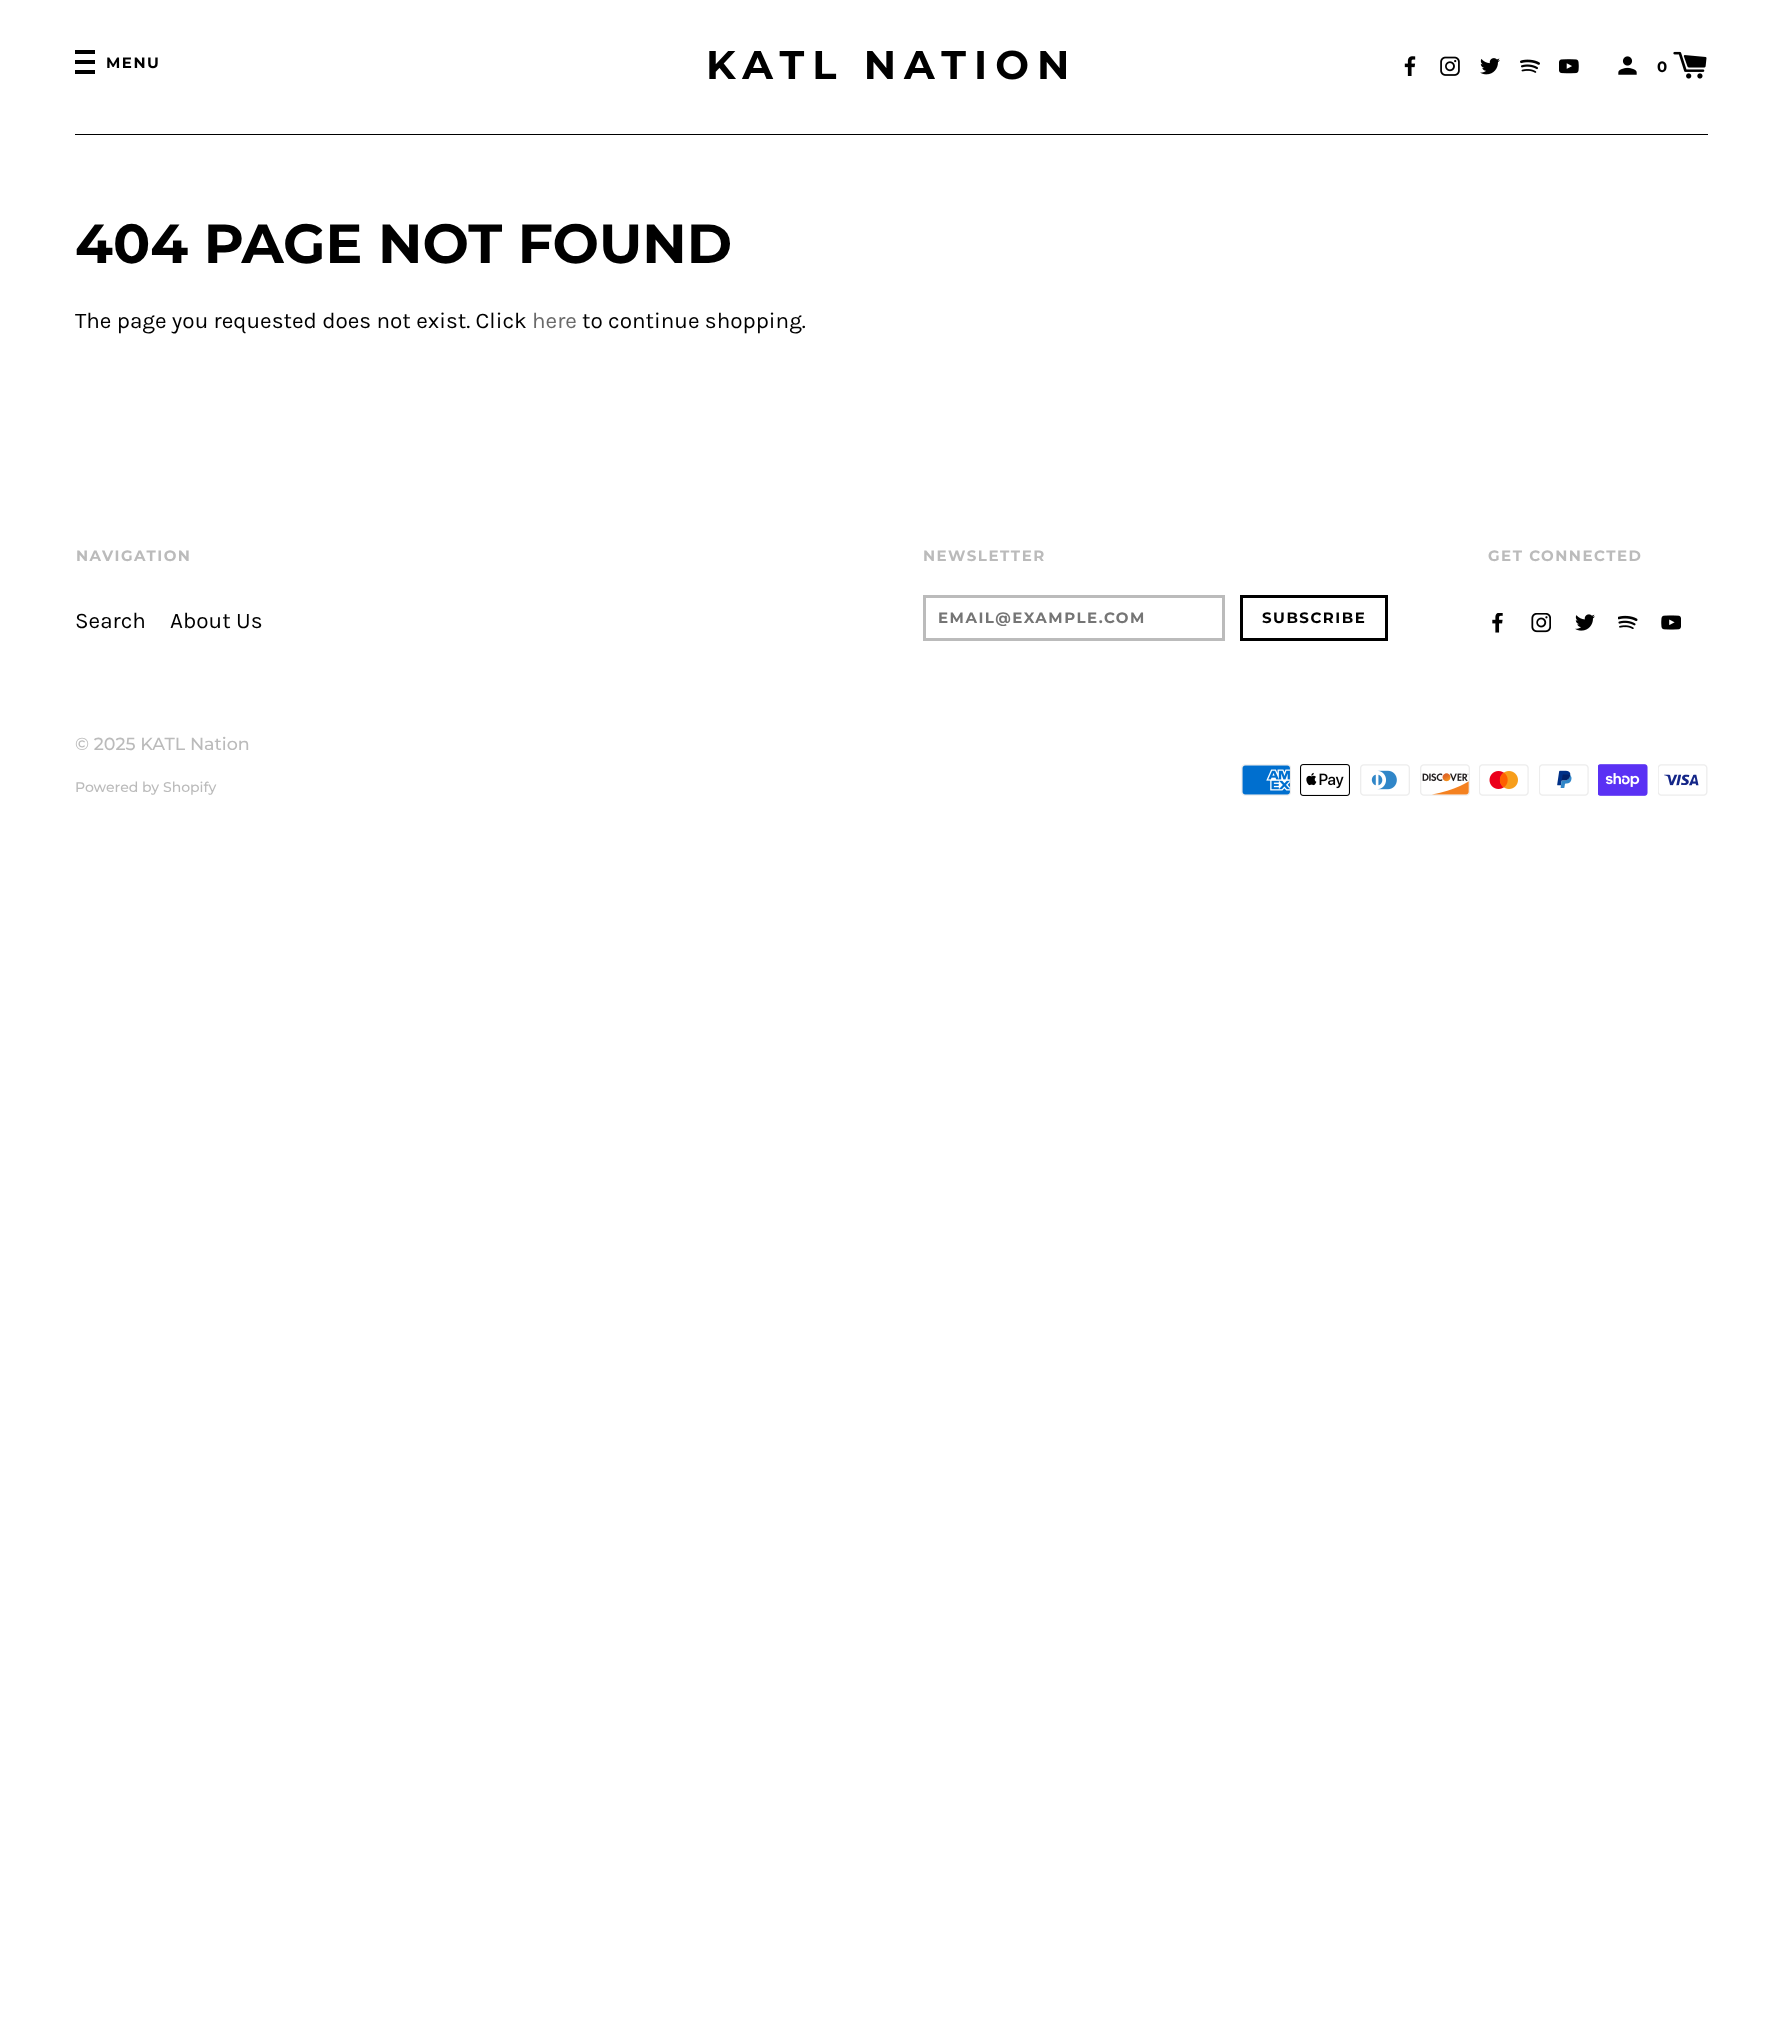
<svg xmlns="http://www.w3.org/2000/svg" width="1782" height="2042" viewBox="0 0 1782 2042">
  <rect width="100%" height="100%" fill="#ffffff"/>
  <rect x="75" y="134" width="1633" height="1" fill="#000000"/>
  <rect x="75" y="50" width="20" height="4" fill="#000000"/>
  <rect x="75" y="60" width="20" height="4" fill="#000000"/>
  <rect x="75" y="70" width="20" height="4" fill="#000000"/>
  <text x="106" y="68" font-family="Montserrat" font-size="15" font-weight="bold" letter-spacing="1.5" fill="#000000">MENU</text>
  <text x="706" y="79" font-family="Montserrat" font-size="40" font-weight="bold" letter-spacing="8" fill="#000000">KATL NATION</text>
  <image x="1404" y="56" width="12" height="20" href="img1.png"/>
  <image x="1440" y="56" width="20" height="20" href="img2.png"/>
  <image x="1480" y="58" width="20" height="17" href="img3.png"/>
  <image x="1520" y="59" width="20" height="14" href="img4.png"/>
  <image x="1559" y="59" width="20" height="15" href="img5.png"/>
  <image x="1618" y="56" width="19" height="19" href="img6.png"/>
  <text x="1657" y="72" font-family="Montserrat" font-size="15" font-weight="bold" fill="#000000">0</text>
  <image x="1673" y="51" width="34" height="28" href="img7.png"/>
  <text x="75" y="263" font-family="Montserrat" font-size="55" font-weight="bold" fill="#000000">404 PAGE NOT FOUND</text>
  <text x="75" y="328" font-family="Karla" font-size="22.5" fill="#000000">The page you requested does not exist. Click</text>
  <text x="532" y="328" font-family="Karla" font-size="22.5" fill="#6a6a6a">here</text>
  <text x="582" y="328" font-family="Karla" font-size="22.5" fill="#000000">to continue shopping.</text>
  <text x="76" y="561" font-family="Montserrat" font-size="15" font-weight="bold" letter-spacing="1.5" fill="#bbbbbb">NAVIGATION</text>
  <text x="75" y="628" font-family="Karla" font-size="22.5" fill="#000000">Search</text>
  <text x="170" y="628" font-family="Karla" font-size="22.5" fill="#000000">About Us</text>
  <text x="923" y="561" font-family="Montserrat" font-size="15" font-weight="bold" letter-spacing="1.5" fill="#bbbbbb">NEWSLETTER</text>
  <rect x="924.5" y="596.5" width="299" height="43" fill="none" stroke="#bbbbbb" stroke-width="3"/>
  <text x="938" y="623" font-family="Montserrat" font-size="15" font-weight="bold" letter-spacing="1.5" fill="#757575">EMAIL@EXAMPLE.COM</text>
  <rect x="1241.5" y="596.5" width="145" height="43" fill="none" stroke="#000000" stroke-width="3"/>
  <text x="1262" y="623" font-family="Montserrat" font-size="15" font-weight="bold" letter-spacing="1.5" fill="#000000">SUBSCRIBE</text>
  <text x="1488" y="561" font-family="Montserrat" font-size="15" font-weight="bold" letter-spacing="1.5" fill="#bbbbbb">GET CONNECTED</text>
  <image x="1492" y="613" width="11" height="20" href="img8.png"/>
  <image x="1531" y="613" width="20" height="20" href="img9.png"/>
  <image x="1575" y="614" width="20" height="17" href="img10.png"/>
  <image x="1618" y="615" width="20" height="14" href="img11.png"/>
  <image x="1661" y="615" width="20" height="15" href="img12.png"/>
  <text x="75" y="750" font-family="Montserrat" font-size="17.5" font-weight="500" fill="#bbbbbb">© 2025 KATL Nation</text>
  <text x="75" y="792" font-family="Montserrat" font-size="14" font-weight="500" fill="#bbbbbb">Powered by Shopify</text>
  <image x="1241" y="764" width="50" height="32" href="img13.png"/>
  <image x="1300" y="764" width="50" height="32" href="img14.png"/>
  <image x="1360" y="764" width="50" height="32" href="img15.png"/>
  <image x="1420" y="764" width="50" height="32" href="img16.png"/>
  <image x="1479" y="764" width="50" height="32" href="img17.png"/>
  <image x="1539" y="764" width="50" height="32" href="img18.png"/>
  <image x="1598" y="764" width="50" height="32" href="img19.png"/>
  <image x="1658" y="764" width="50" height="32" href="img20.png"/>
</svg>
